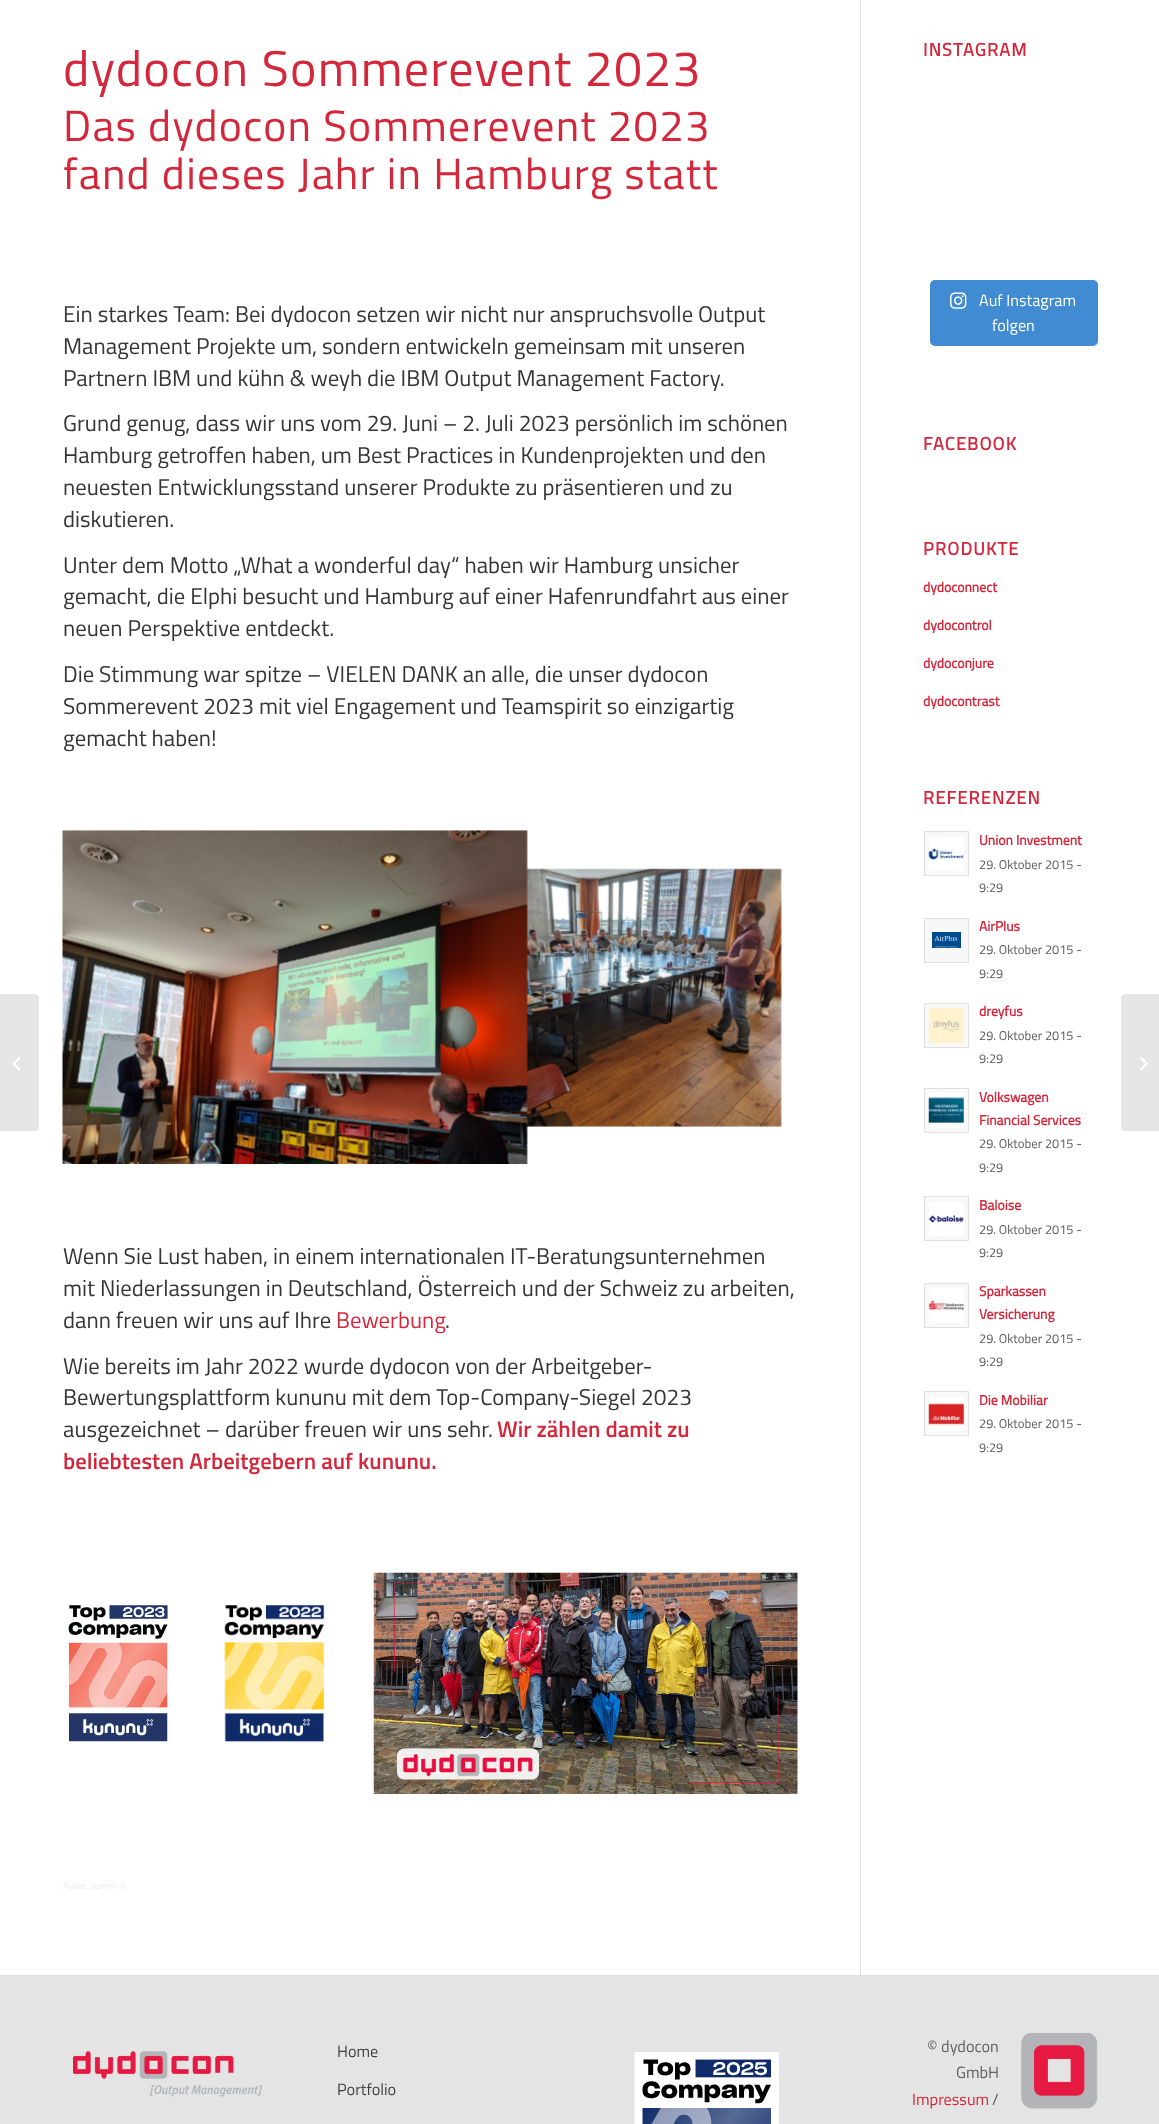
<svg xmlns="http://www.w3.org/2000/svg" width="1159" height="2124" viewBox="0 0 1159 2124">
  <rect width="100%" height="100%" fill="#ffffff"/>
  <path d="M0 994H34C37 994 39 996 39 999V1126C39 1129 37 1131 34 1131H0Z" fill="#e6e6e6"/>
  <image x="13" y="1057" width="7" height="14" href="img1.png"/>
  <rect x="860" y="0" width="1" height="1975" fill="#e1e1e1"/>
  <text x="63" y="86" font-family="Titillium Web" font-size="50" letter-spacing="1.25" fill="#d4273b">dydocon Sommerevent 2023</text>
  <text x="63" y="141" font-family="Titillium Web" font-size="43.75" letter-spacing="1.25" fill="#d4273b">Das dydocon Sommerevent 2023</text>
  <text x="63" y="189" font-family="Titillium Web" font-size="43.75" letter-spacing="1.25" fill="#d4273b">fand dieses Jahr in Hamburg statt</text>
  <text x="63" y="322" font-family="Titillium Web" font-size="22.75" fill="#353535">Ein starkes Team: Bei dydocon setzen wir nicht nur anspruchsvolle Output</text>
  <text x="63" y="354" font-family="Titillium Web" font-size="22.75" fill="#353535">Management Projekte um, sondern entwickeln gemeinsam mit unseren</text>
  <text x="63" y="386" font-family="Titillium Web" font-size="22.75" fill="#353535">Partnern IBM und kühn &amp; weyh die IBM Output Management Factory.</text>
  <text x="63" y="431" font-family="Titillium Web" font-size="22.75" fill="#353535">Grund genug, dass wir uns vom 29. Juni – 2. Juli 2023 persönlich im schönen</text>
  <text x="63" y="463" font-family="Titillium Web" font-size="22.75" fill="#353535">Hamburg getroffen haben, um Best Practices in Kundenprojekten und den</text>
  <text x="63" y="495" font-family="Titillium Web" font-size="22.75" fill="#353535">neuesten Entwicklungsstand unserer Produkte zu präsentieren und zu</text>
  <text x="63" y="527" font-family="Titillium Web" font-size="22.75" fill="#353535">diskutieren.</text>
  <text x="63" y="573" font-family="Titillium Web" font-size="22.75" fill="#353535">Unter dem Motto „What a wonderful day“ haben wir Hamburg unsicher</text>
  <text x="63" y="604" font-family="Titillium Web" font-size="22.75" fill="#353535">gemacht, die Elphi besucht und Hamburg auf einer Hafenrundfahrt aus einer</text>
  <text x="63" y="636" font-family="Titillium Web" font-size="22.75" fill="#353535">neuen Perspektive entdeckt.</text>
  <text x="63" y="682" font-family="Titillium Web" font-size="22.75" fill="#353535">Die Stimmung war spitze – VIELEN DANK an alle, die unser dydocon</text>
  <text x="63" y="714" font-family="Titillium Web" font-size="22.75" fill="#353535">Sommerevent 2023 mit viel Engagement und Teamspirit so einzigartig</text>
  <text x="63" y="746" font-family="Titillium Web" font-size="22.75" fill="#353535">gemacht haben!</text>
  <image x="526" y="868" width="256" height="259" href="img3.png"/>
  <image x="62" y="830" width="466" height="334" href="img2.png"/>
  <text x="63" y="1264" font-family="Titillium Web" font-size="22.75" fill="#353535">Wenn Sie Lust haben, in einem internationalen IT-Beratungsunternehmen</text>
  <text x="63" y="1296" font-family="Titillium Web" font-size="22.75" fill="#353535">mit Niederlassungen in Deutschland, Österreich und der Schweiz zu arbeiten,</text>
  <text x="63" y="1328" font-family="Titillium Web" font-size="22.75" fill="#353535">dann freuen wir uns auf Ihre</text>
  <text x="336" y="1328" font-family="Titillium Web" font-size="22.75" fill="#d4273b">Bewerbung</text>
  <text x="445" y="1328" font-family="Titillium Web" font-size="22.75" fill="#353535">.</text>
  <text x="63" y="1374" font-family="Titillium Web" font-size="22.75" fill="#353535">Wie bereits im Jahr 2022 wurde dydocon von der Arbeitgeber-</text>
  <text x="63" y="1405" font-family="Titillium Web" font-size="22.75" fill="#353535">Bewertungsplattform kununu mit dem Top-Company-Siegel 2023</text>
  <text x="63" y="1437" font-family="Titillium Web" font-size="22.75" fill="#353535">ausgezeichnet – darüber freuen wir uns sehr.</text>
  <text x="497" y="1437" font-family="Titillium Web" font-size="22.75" font-weight="600" fill="#d4273b">Wir zählen damit zu</text>
  <text x="63" y="1469" font-family="Titillium Web" font-size="22.75" font-weight="600" fill="#d4273b">beliebtesten Arbeitgebern auf kununu.</text>
  <image x="68" y="1605" width="100" height="137" href="img4.png"/>
  <image x="224" y="1605" width="101" height="137" href="img5.png"/>
  <image x="373" y="1572" width="425" height="222" href="img6.png"/>
  <text x="63" y="1889" font-family="Titillium Web" font-size="9.75" fill="#eaeaea">Autor: summ-it</text>
  <text x="923" y="56" font-family="Titillium Web" font-size="18" font-weight="bold" letter-spacing="1.25" fill="#d4273b">INSTAGRAM</text>
  <rect x="930" y="280" width="168" height="66" rx="5" fill="#408bd1"/>
  <image x="950" y="292" width="17" height="17" href="img7.png"/>
  <text x="979" y="306" font-family="Titillium Web" font-size="16.25" fill="#ffffff">Auf Instagram</text>
  <text x="992" y="331" font-family="Titillium Web" font-size="16.25" fill="#ffffff">folgen</text>
  <text x="923" y="450" font-family="Titillium Web" font-size="18" font-weight="bold" letter-spacing="1.25" fill="#d4273b">FACEBOOK</text>
  <text x="923" y="555" font-family="Titillium Web" font-size="18" font-weight="bold" letter-spacing="1.25" fill="#d4273b">PRODUKTE</text>
  <text x="923" y="592" font-family="Titillium Web" font-size="13.75" font-weight="bold" fill="#d4273b">dydoconnect</text>
  <text x="923" y="630" font-family="Titillium Web" font-size="13.75" font-weight="bold" fill="#d4273b">dydocontrol</text>
  <text x="923" y="668" font-family="Titillium Web" font-size="13.75" font-weight="bold" fill="#d4273b">dydoconjure</text>
  <text x="923" y="706" font-family="Titillium Web" font-size="13.75" font-weight="bold" fill="#d4273b">dydocontrast</text>
  <text x="923" y="804" font-family="Titillium Web" font-size="18" font-weight="bold" letter-spacing="1.25" fill="#d4273b">REFERENZEN</text>
  <rect x="924.5" y="831.5" width="44" height="44" fill="#f8f8f8" stroke="#e1e1e1"/>
  <image x="928" y="837" width="36" height="34" href="img8.png"/>
  <text x="979" y="845" font-family="Titillium Web" font-size="13.75" font-weight="bold" fill="#d4273b">Union Investment</text>
  <text x="979" y="869" font-family="Titillium Web" font-size="12.75" fill="#575757">29. Oktober 2015 -</text>
  <text x="979" y="892" font-family="Titillium Web" font-size="12.75" fill="#575757">9:29</text>
  <rect x="924.5" y="918.5" width="44" height="44" fill="#f8f8f8" stroke="#e1e1e1"/>
  <image x="932" y="932" width="29" height="16" href="img9.png"/>
  <text x="979" y="931" font-family="Titillium Web" font-size="13.75" font-weight="bold" fill="#d4273b">AirPlus</text>
  <text x="979" y="954" font-family="Titillium Web" font-size="12.75" fill="#575757">29. Oktober 2015 -</text>
  <text x="979" y="978" font-family="Titillium Web" font-size="12.75" fill="#575757">9:29</text>
  <rect x="924.5" y="1003.5" width="44" height="44" fill="#f8f8f8" stroke="#e1e1e1"/>
  <image x="928" y="1007" width="36" height="36" href="img10.png"/>
  <text x="979" y="1016" font-family="Titillium Web" font-size="13.75" font-weight="bold" fill="#d4273b">dreyfus</text>
  <text x="979" y="1040" font-family="Titillium Web" font-size="12.75" fill="#575757">29. Oktober 2015 -</text>
  <text x="979" y="1063" font-family="Titillium Web" font-size="12.75" fill="#575757">9:29</text>
  <rect x="924.5" y="1088.5" width="44" height="44" fill="#f8f8f8" stroke="#e1e1e1"/>
  <image x="928" y="1093" width="36" height="35" href="img11.png"/>
  <text x="979" y="1102" font-family="Titillium Web" font-size="13.75" font-weight="bold" fill="#d4273b">Volkswagen</text>
  <text x="979" y="1125" font-family="Titillium Web" font-size="13.75" font-weight="bold" fill="#d4273b">Financial Services</text>
  <text x="979" y="1148" font-family="Titillium Web" font-size="12.75" fill="#575757">29. Oktober 2015 -</text>
  <text x="979" y="1172" font-family="Titillium Web" font-size="12.75" fill="#575757">9:29</text>
  <rect x="924.5" y="1196.5" width="44" height="44" fill="#f8f8f8" stroke="#e1e1e1"/>
  <image x="928" y="1202" width="36" height="34" href="img12.png"/>
  <text x="979" y="1210" font-family="Titillium Web" font-size="13.75" font-weight="bold" fill="#d4273b">Baloise</text>
  <text x="979" y="1234" font-family="Titillium Web" font-size="12.75" fill="#575757">29. Oktober 2015 -</text>
  <text x="979" y="1257" font-family="Titillium Web" font-size="12.75" fill="#575757">9:29</text>
  <rect x="924.5" y="1283.5" width="44" height="44" fill="#f8f8f8" stroke="#e1e1e1"/>
  <image x="928" y="1288" width="36" height="35" href="img13.png"/>
  <text x="979" y="1296" font-family="Titillium Web" font-size="13.75" font-weight="bold" fill="#d4273b">Sparkassen</text>
  <text x="979" y="1319" font-family="Titillium Web" font-size="13.75" font-weight="bold" fill="#d4273b">Versicherung</text>
  <text x="979" y="1343" font-family="Titillium Web" font-size="12.75" fill="#575757">29. Oktober 2015 -</text>
  <text x="979" y="1366" font-family="Titillium Web" font-size="12.75" fill="#575757">9:29</text>
  <rect x="924.5" y="1391.5" width="44" height="44" fill="#f8f8f8" stroke="#e1e1e1"/>
  <image x="928" y="1397" width="36" height="34" href="img14.png"/>
  <text x="979" y="1405" font-family="Titillium Web" font-size="13.75" font-weight="bold" fill="#d4273b">Die Mobiliar</text>
  <text x="979" y="1428" font-family="Titillium Web" font-size="12.75" fill="#575757">29. Oktober 2015 -</text>
  <text x="979" y="1452" font-family="Titillium Web" font-size="12.75" fill="#575757">9:29</text>
  <rect x="0" y="1976" width="1159" height="148" fill="#e4e4e4"/>
  <rect x="0" y="1975" width="1159" height="1" fill="#e1e1e1"/>
  <image x="73" y="2051" width="189" height="46" href="img15.png"/>
  <text x="337" y="2057" font-family="Titillium Web" font-size="16.25" fill="#424242">Home</text>
  <text x="337" y="2095" font-family="Titillium Web" font-size="16.25" fill="#424242">Portfolio</text>
  <image x="634" y="2052" width="145" height="72" href="img16.png"/>
  <text x="927" y="2052" font-family="Titillium Web" font-size="16.25" fill="#616161">© dydocon</text>
  <image x="1021" y="2033" width="77" height="76" href="img17.png"/>
  <text x="956" y="2078" font-family="Titillium Web" font-size="16.25" fill="#616161">GmbH</text>
  <text x="912" y="2105" font-family="Titillium Web" font-size="16.25" fill="#d4273b">Impressum</text>
  <text x="992" y="2105" font-family="Titillium Web" font-size="16.25" fill="#616161">/</text>
  <path d="M1126 994H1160V1131H1126C1123 1131 1121 1129 1121 1126V999C1121 996 1123 994 1126 994Z" fill="#e6e6e6"/>
  <image x="1140" y="1057" width="8" height="14" href="img18.png"/>
</svg>
